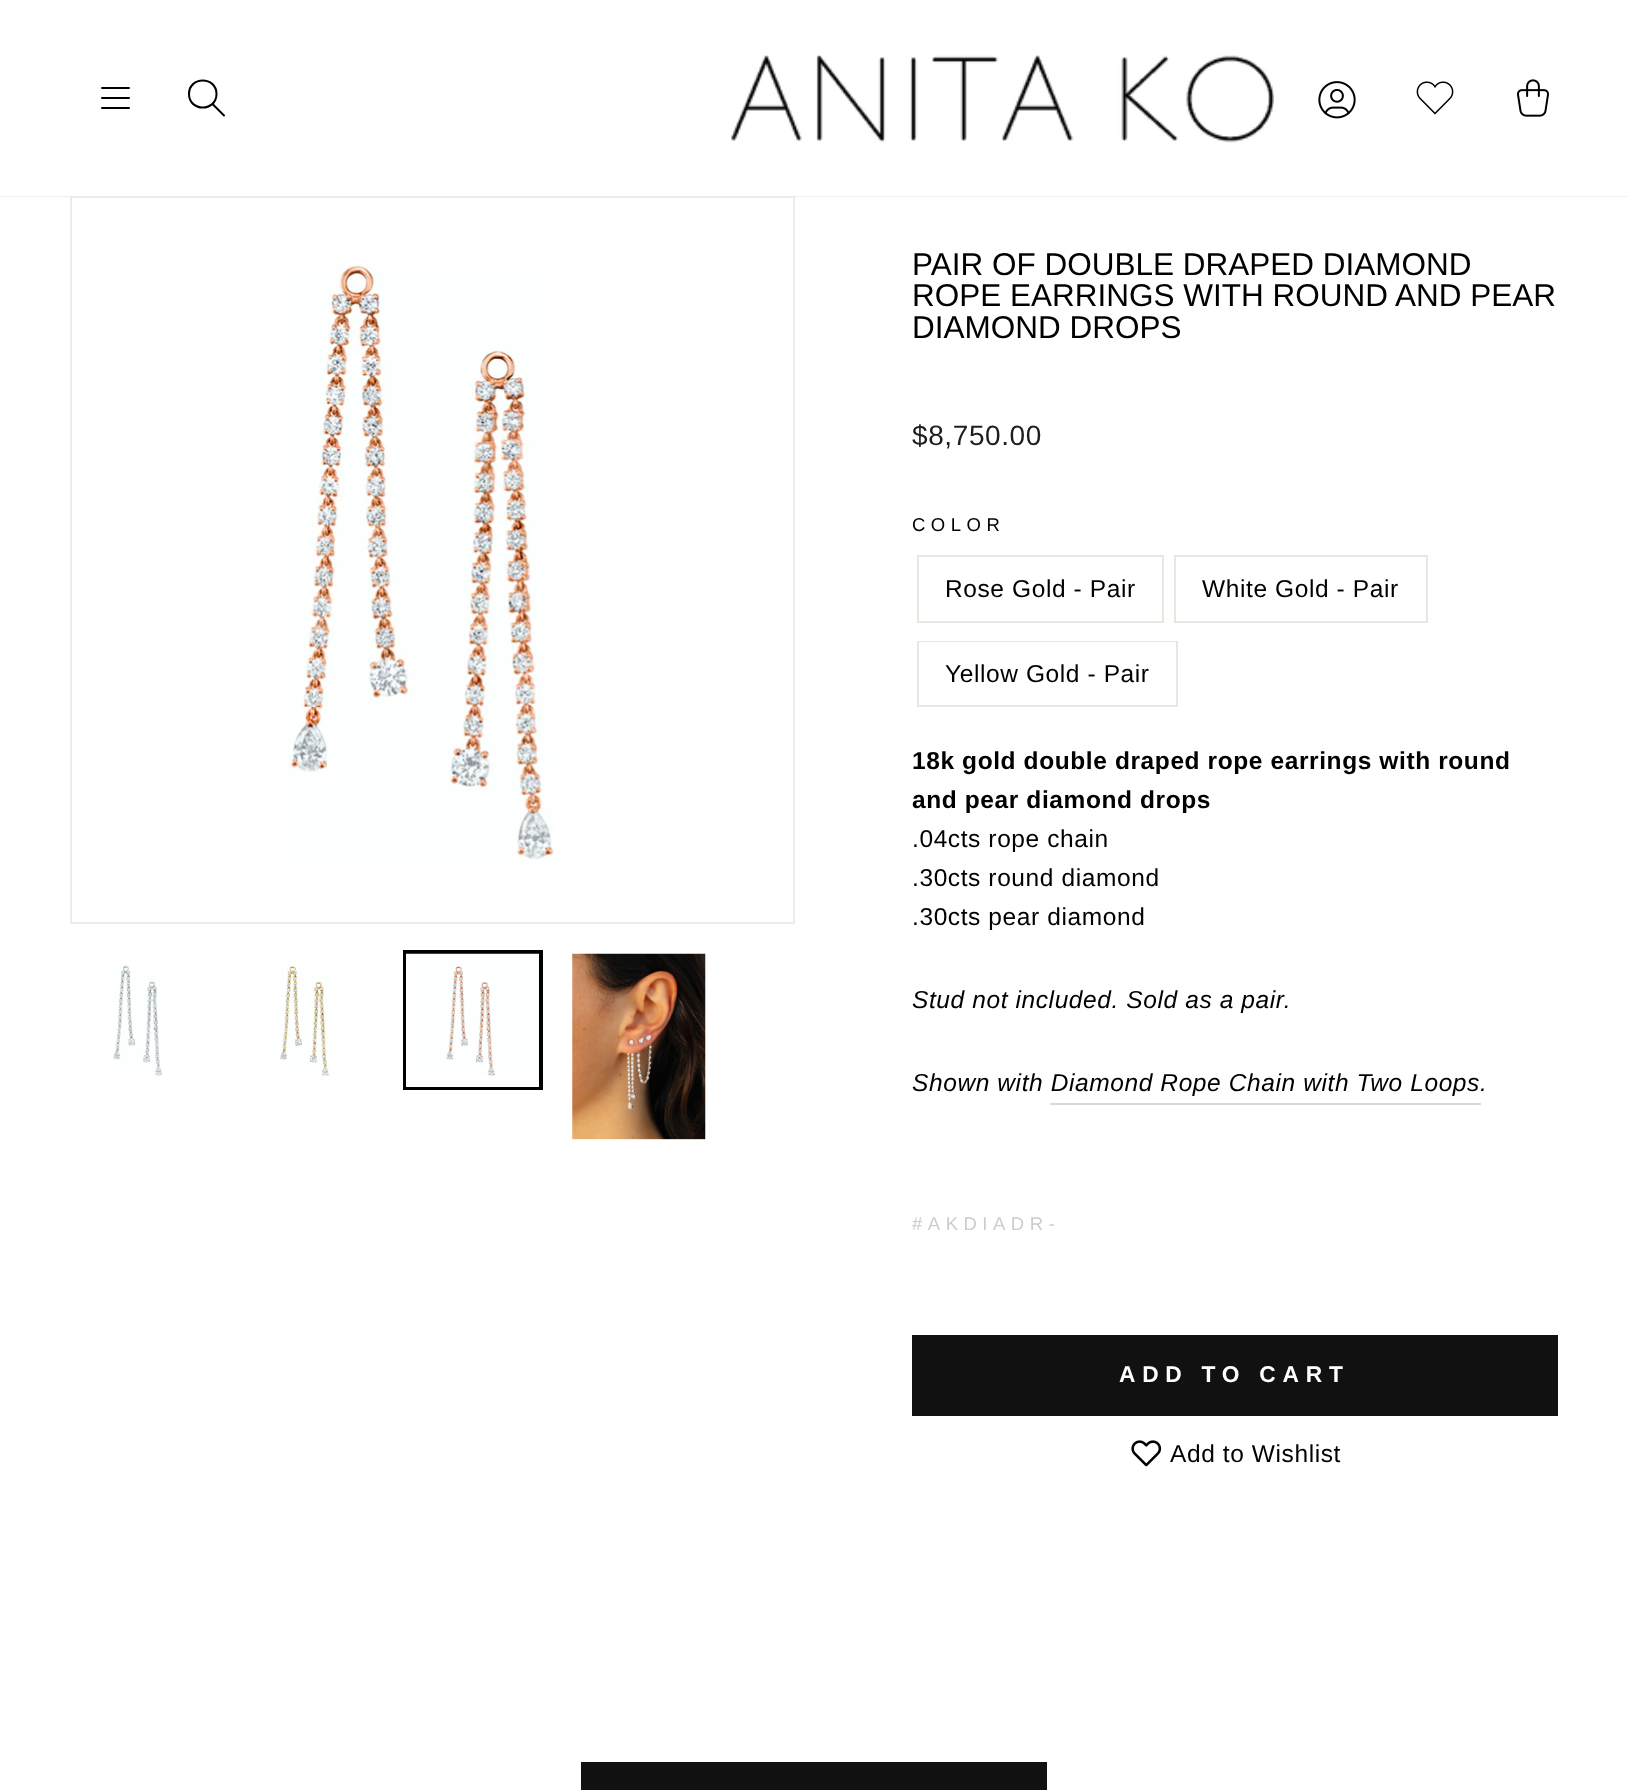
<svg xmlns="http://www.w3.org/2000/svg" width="1627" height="1790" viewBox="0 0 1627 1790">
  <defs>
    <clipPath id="clip1"><rect x="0" y="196" width="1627" height="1"/></clipPath>
    <filter id="blur1" x="-50%" y="-200%" width="200%" height="500%"><feGaussianBlur stdDeviation="1"/></filter>
  </defs>
  <rect width="100%" height="100%" fill="#ffffff"/>
  <g clip-path="url(#clip1)">
    <rect x="0" y="0" width="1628" height="196" fill="#000000" fill-opacity="0.2" filter="url(#blur1)"/>
  </g>
  <path d="M102 88H129M102 98H129M102 108H129" fill="none" stroke="#000000" stroke-width="2" stroke-linecap="round"/>
  <path d="M189 94C189 112 216.5 112 216.5 94C216.5 76 189 76 189 94ZM224 115.5L212.5 104" fill="none" stroke="#000000" stroke-width="2" stroke-linecap="round"/>
  <image x="731" y="55" width="543" height="88" href="img1.png"/>
  <image x="1318" y="81" width="38" height="38" href="img2.png"/>
  <image x="1416" y="81" width="38" height="34" href="img3.png"/>
  <image x="1517" y="79" width="32" height="38" href="img4.png"/>
  <rect x="71" y="197" width="723" height="726" fill="none" stroke="#ececec" stroke-width="2"/>
  <image x="288" y="262" width="266" height="598" href="img5.png"/>
  <image x="113" y="965" width="49" height="112" href="img6.png"/>
  <image x="278" y="965" width="52" height="113" href="img7.png"/>
  <rect x="405" y="952" width="136" height="136" fill="none" stroke="#000000" stroke-width="4"/>
  <rect x="406" y="1076" width="133" height="11" fill="#ffffff"/>
  <image x="406" y="953" width="133" height="123" href="img8.png"/>
  <image x="572" y="953" width="134" height="187" href="img9.png"/>
  <text x="912" y="275" font-family="Liberation Sans" font-size="31.5" fill="#000000">PAIR OF DOUBLE DRAPED DIAMOND</text>
  <text x="912" y="306" font-family="Liberation Sans" font-size="31.5" fill="#000000">ROPE EARRINGS WITH ROUND AND PEAR</text>
  <text x="912" y="338" font-family="Liberation Sans" font-size="31.5" fill="#000000">DIAMOND DROPS</text>
  <text x="912" y="445" font-family="Liberation Sans" font-size="28" letter-spacing="0.6" fill="#1c1d1d">$8,750.00</text>
  <text x="912" y="531" font-family="Liberation Sans" font-size="18.5" letter-spacing="5.5" fill="#000000">COLOR</text>
  <rect x="918" y="556" width="245" height="66" fill="none" stroke="#e8e8e1" stroke-width="2"/>
  <text x="945" y="597" font-family="Liberation Sans" font-size="24.5" letter-spacing="0.6" fill="#000000">Rose Gold - Pair</text>
  <rect x="1175" y="556" width="252" height="66" fill="none" stroke="#e8e8e1" stroke-width="2"/>
  <text x="1202" y="597" font-family="Liberation Sans" font-size="24.5" letter-spacing="0.6" fill="#000000">White Gold - Pair</text>
  <rect x="918" y="642" width="259" height="64" fill="none" stroke="#e8e8e1" stroke-width="2"/>
  <rect x="919" y="642" width="257" height="1" fill="#ffffff"/>
  <text x="945" y="682" font-family="Liberation Sans" font-size="24.5" letter-spacing="0.6" fill="#000000">Yellow Gold - Pair</text>
  <text x="912" y="769" font-family="Liberation Sans" font-size="24.5" font-weight="bold" letter-spacing="0.6" fill="#000000">18k gold double draped rope earrings with round</text>
  <text x="912" y="808" font-family="Liberation Sans" font-size="24.5" font-weight="bold" letter-spacing="0.6" fill="#000000">and pear diamond drops</text>
  <text x="912" y="847" font-family="Liberation Sans" font-size="24.5" letter-spacing="0.6" fill="#000000">.04cts rope chain</text>
  <text x="912" y="886" font-family="Liberation Sans" font-size="24.5" letter-spacing="0.6" fill="#000000">.30cts round diamond</text>
  <text x="912" y="925" font-family="Liberation Sans" font-size="24.5" letter-spacing="0.6" fill="#000000">.30cts pear diamond</text>
  <text x="912" y="1008" font-family="Liberation Sans" font-size="24.5" font-style="italic" letter-spacing="0.6" fill="#000000">Stud not included. Sold as a pair.</text>
  <text x="912" y="1091" font-family="Liberation Sans" font-size="24.5" font-style="italic" letter-spacing="0.6" fill="#000000">Shown with Diamond Rope Chain with Two Loops</text>
  <text x="1480" y="1091" font-family="Liberation Sans" font-size="24.5" font-style="italic" letter-spacing="0.6" fill="#000000">.</text>
  <rect x="1050" y="1103" width="431" height="2" fill="#d9d9d9"/>
  <text x="912" y="1230" font-family="Liberation Sans" font-size="18.5" letter-spacing="5.5" fill="#cccccc">#AKDIADR-</text>
  <rect x="912" y="1335" width="646" height="81" fill="#111111"/>
  <text x="1119" y="1382" font-family="Liberation Sans" font-size="22.75" font-weight="bold" letter-spacing="6.75" fill="#ffffff">ADD TO CART</text>
  <image x="1131" y="1440" width="31" height="27" href="img10.png"/>
  <text x="1170" y="1462" font-family="Liberation Sans" font-size="24.5" letter-spacing="0.6" fill="#000000">Add to Wishlist</text>
  <rect x="581" y="1762" width="466" height="28" fill="#111111"/>
</svg>
